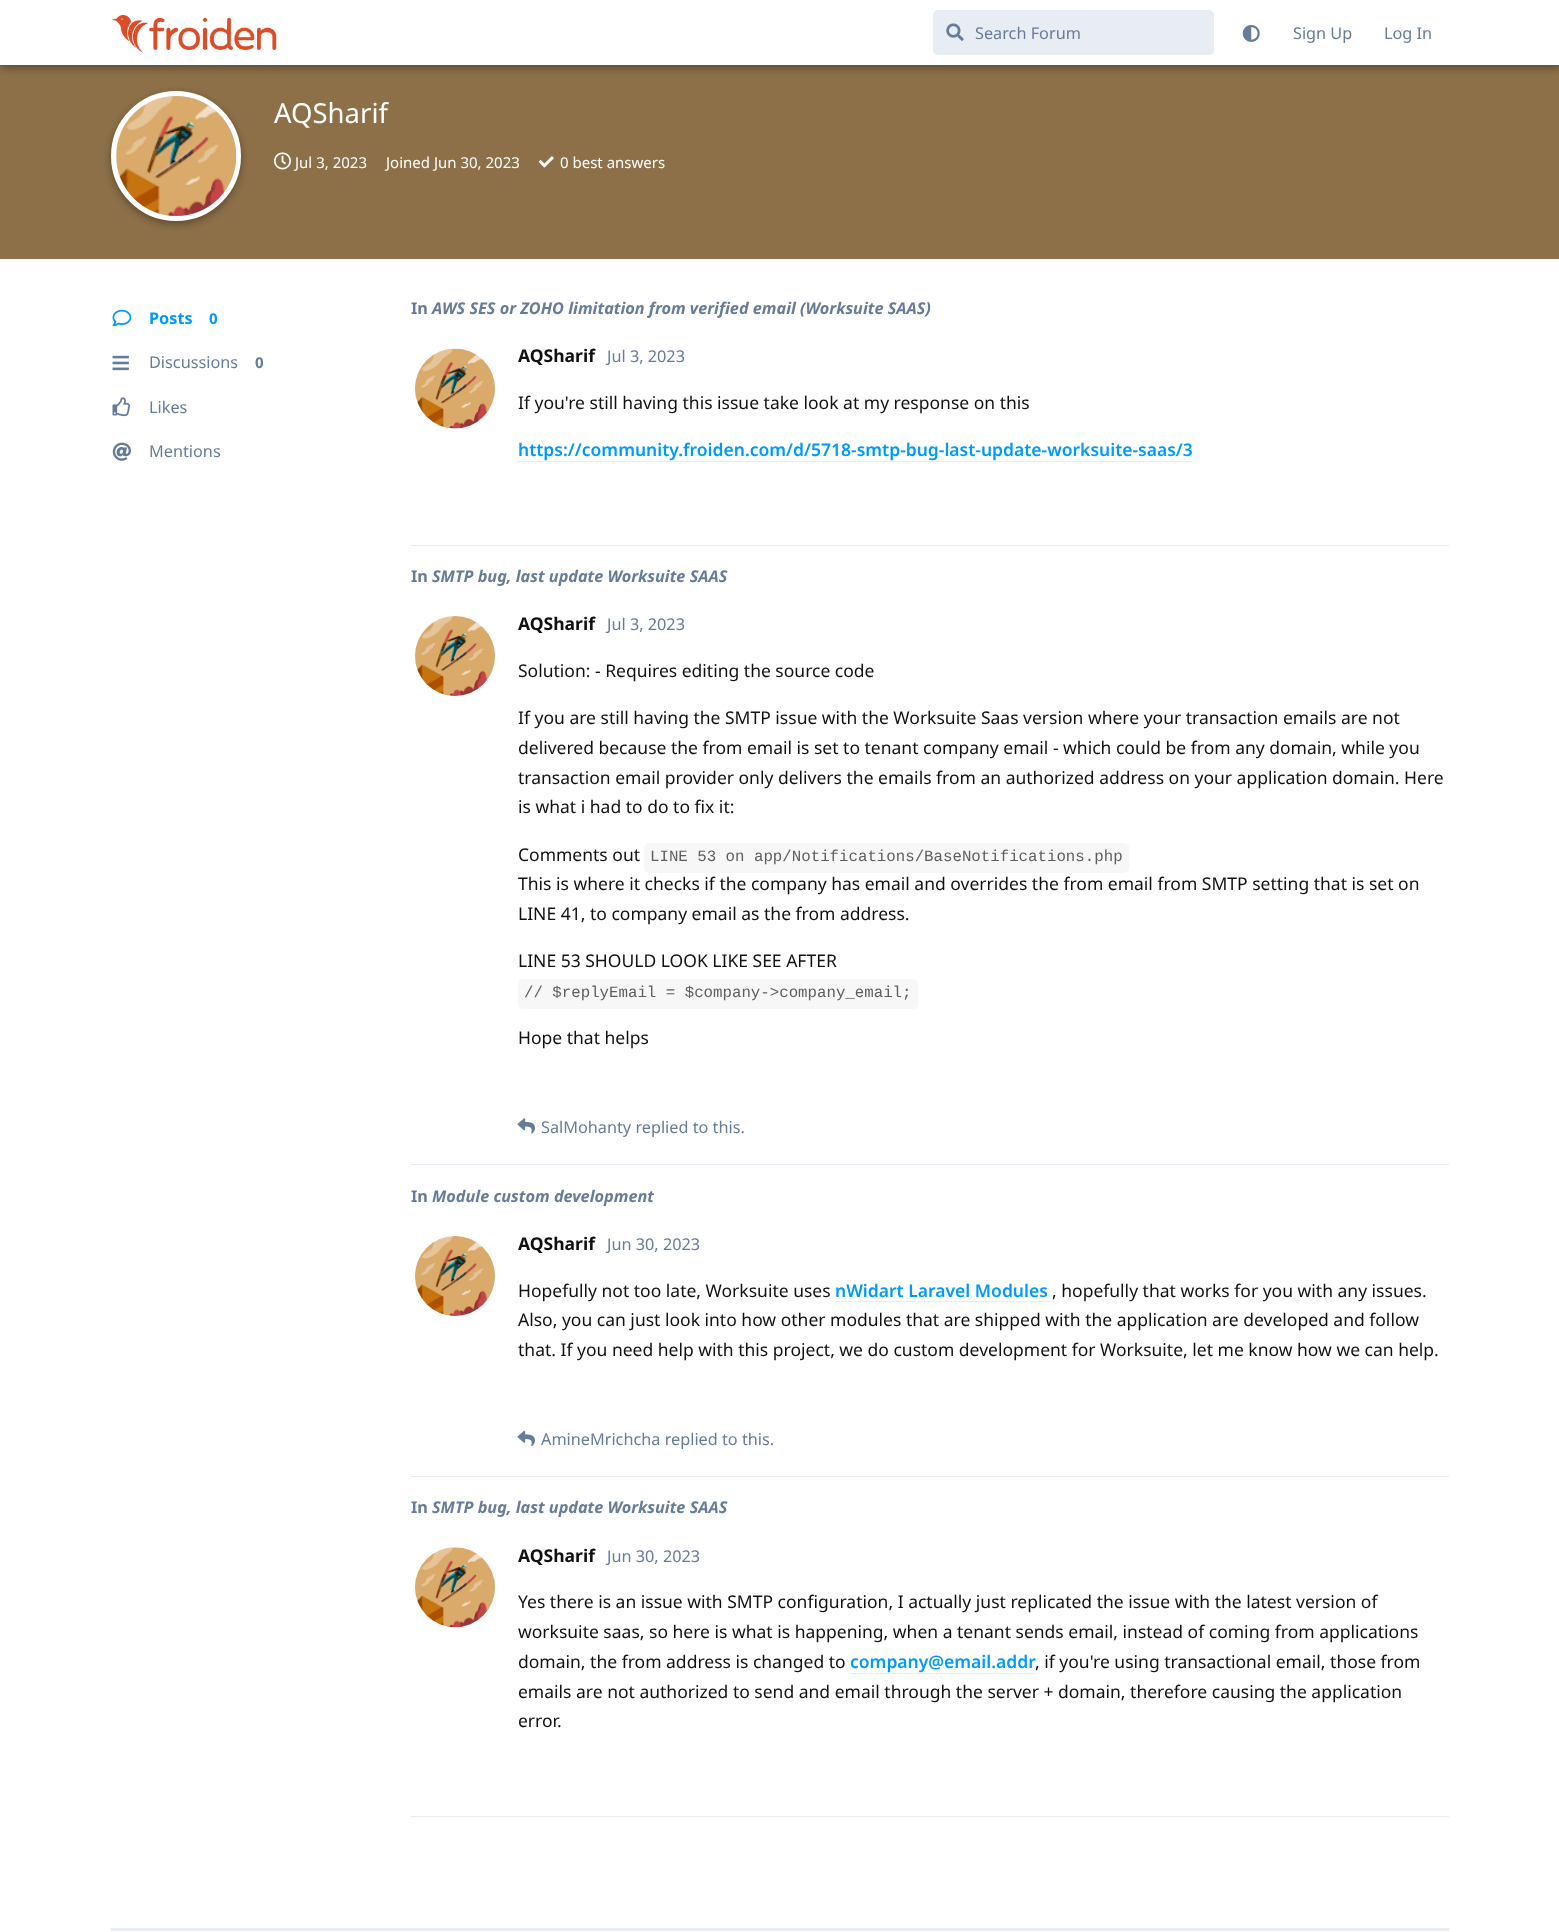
<svg xmlns="http://www.w3.org/2000/svg" width="1559" height="1932" viewBox="0 0 1559 1932">
  <defs>
    <filter id="blur1" x="-50%" y="-200%" width="200%" height="500%"><feGaussianBlur stdDeviation="4"/></filter>
  </defs>
  <rect width="100%" height="100%" fill="#ffffff"/>
  <rect x="0" y="65" width="1559" height="194" fill="#8d7048"/>
  <rect x="0" y="3" width="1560" height="65" fill="#000000" fill-opacity="0.35" filter="url(#blur1)"/>
  <rect x="0" y="0" width="1559" height="65" fill="#ffffff"/>
  <image x="111" y="15" width="166" height="38" href="img1.png"/>
  <rect x="933" y="10" width="281" height="45" rx="5" fill="#e8ecf3"/>
  <image x="946" y="23" width="18" height="18" href="img2.png"/>
  <text x="975" y="39" font-family="Noto Sans" font-size="16.25" fill="#667c99">Search Forum</text>
  <image x="1242" y="25" width="18" height="17" href="img3.png"/>
  <text x="1293" y="39" font-family="Noto Sans" font-size="16.25" fill="#667c99">Sign Up</text>
  <text x="1384" y="39" font-family="Noto Sans" font-size="16.25" fill="#667c99">Log In</text>
  <rect x="111" y="94" width="130" height="130" rx="65" fill="#000000" fill-opacity="0.35" filter="url(#blur1)"/>
  <circle cx="176" cy="156" r="62.5" fill="#e8ecf3" stroke="#ffffff" stroke-width="5"/>
  <image x="116" y="96" width="121" height="120" href="img4.png"/>
  <text x="274" y="123" font-family="Noto Sans" font-size="27.5" fill="#ffffff">AQSharif</text>
  <image x="274" y="152" width="17" height="18" href="img5.png"/>
  <text x="295" y="168" font-family="Noto Sans" font-size="15" fill="#ffffff">Jul 3, 2023</text>
  <text x="386" y="168" font-family="Noto Sans" font-size="15" fill="#ffffff">Joined Jun 30, 2023</text>
  <image x="538" y="156" width="16" height="12" href="img6.png"/>
  <text x="560" y="168" font-family="Noto Sans" font-size="15" fill="#ffffff">0 best answers</text>
  <image x="112" y="309" width="20" height="18" href="img7.png"/>
  <text x="149" y="324" font-family="Noto Sans" font-size="16.25" font-weight="bold" fill="#009aff">Posts</text>
  <text x="209" y="324" font-family="Noto Sans" font-size="15" font-weight="bold" fill="#009aff">0</text>
  <image x="112" y="355" width="17" height="16" href="img8.png"/>
  <text x="149" y="368" font-family="Noto Sans" font-size="16.25" fill="#667c99">Discussions</text>
  <text x="255" y="368" font-family="Noto Sans" font-size="15" font-weight="bold" fill="#667c99">0</text>
  <image x="112" y="397" width="18" height="20" href="img9.png"/>
  <text x="149" y="413" font-family="Noto Sans" font-size="16.25" fill="#667c99">Likes</text>
  <image x="112" y="442" width="19" height="19" href="img10.png"/>
  <text x="149" y="457" font-family="Noto Sans" font-size="16.25" fill="#667c99">Mentions</text>
  <rect x="411" y="545" width="1038" height="1" fill="#e8ecf3"/>
  <text x="411" y="314" font-family="Noto Sans" font-size="16.25" font-weight="bold" fill="#667c99">In</text>
  <text x="432" y="314" font-family="Noto Sans" font-size="16.25" font-weight="bold" font-style="italic" fill="#667c99">AWS SES or ZOHO limitation from verified email (Worksuite SAAS)</text>
  <circle cx="455" cy="389" r="42" fill="#e8ecf3" stroke="#ffffff" stroke-width="4"/>
  <image x="415" y="348" width="80" height="81" href="img11.png"/>
  <text x="518" y="362" font-family="Noto Sans" font-size="17.5" font-weight="bold" fill="#111111">AQSharif</text>
  <text x="607" y="362" font-family="Noto Sans" font-size="16.25" fill="#667c99">Jul 3, 2023</text>
  <text x="518" y="409" font-family="Noto Sans" font-size="17.5" fill="#111111">If you're still having this issue take look at my response on this</text>
  <text x="518" y="456" font-family="Noto Sans" font-size="17.5" font-weight="600" fill="#009aff">https://community.froiden.com/d/5718-smtp-bug-last-update-worksuite-saas/3</text>
  <rect x="518" y="461" width="675" height="1" fill="#e8ecf3"/>
  <rect x="411" y="1164" width="1038" height="1" fill="#e8ecf3"/>
  <text x="411" y="582" font-family="Noto Sans" font-size="16.25" font-weight="bold" fill="#667c99">In</text>
  <text x="432" y="582" font-family="Noto Sans" font-size="16.25" font-weight="bold" font-style="italic" fill="#667c99">SMTP bug, last update Worksuite SAAS</text>
  <rect x="413" y="615" width="84" height="83" rx="41.5" fill="#e8ecf3" stroke="#ffffff" stroke-width="4"/>
  <image x="415" y="616" width="80" height="80" href="img12.png"/>
  <text x="518" y="630" font-family="Noto Sans" font-size="17.5" font-weight="bold" fill="#111111">AQSharif</text>
  <text x="607" y="630" font-family="Noto Sans" font-size="16.25" fill="#667c99">Jul 3, 2023</text>
  <text x="518" y="677" font-family="Noto Sans" font-size="17.5" fill="#111111">Solution: - Requires editing the source code</text>
  <text x="518" y="724" font-family="Noto Sans" font-size="17.5" fill="#111111">If you are still having the SMTP issue with the Worksuite Saas version where your transaction emails are not</text>
  <text x="518" y="754" font-family="Noto Sans" font-size="17.5" fill="#111111">delivered because the from email is set to tenant company email - which could be from any domain, while you</text>
  <text x="518" y="784" font-family="Noto Sans" font-size="17.5" fill="#111111">transaction email provider only delivers the emails from an authorized address on your application domain. Here</text>
  <text x="518" y="813" font-family="Noto Sans" font-size="17.5" fill="#111111">is what i had to do to fix it:</text>
  <text x="518" y="861" font-family="Noto Sans" font-size="17.5" fill="#111111">Comments out</text>
  <rect x="644" y="843" width="485" height="30" rx="5" fill="#f7f7f7"/>
  <text x="650" y="861" font-family="Liberation Mono" font-size="15.75" fill="#5e5e5e">LINE 53 on app/Notifications/BaseNotifications.php</text>
  <text x="518" y="890" font-family="Noto Sans" font-size="17.5" fill="#111111">This is where it checks if the company has email and overrides the from email from SMTP setting that is set on</text>
  <text x="518" y="920" font-family="Noto Sans" font-size="17.5" fill="#111111">LINE 41, to company email as the from address.</text>
  <text x="518" y="967" font-family="Noto Sans" font-size="17.5" fill="#111111">LINE 53 SHOULD LOOK LIKE SEE AFTER</text>
  <rect x="518" y="979" width="400" height="30" rx="5" fill="#f7f7f7"/>
  <text x="524" y="997" font-family="Liberation Mono" font-size="15.75" fill="#5e5e5e">// $replyEmail = $company-&gt;company_email;</text>
  <text x="518" y="1044" font-family="Noto Sans" font-size="17.5" fill="#111111">Hope that helps</text>
  <image x="517" y="1118" width="18" height="16" href="img13.png"/>
  <text x="541" y="1133" font-family="Noto Sans" font-size="16.25" fill="#667c99">SalMohanty replied to this.</text>
  <rect x="411" y="1476" width="1038" height="1" fill="#e8ecf3"/>
  <text x="411" y="1202" font-family="Noto Sans" font-size="16.25" font-weight="bold" fill="#667c99">In</text>
  <text x="432" y="1202" font-family="Noto Sans" font-size="16.25" font-weight="bold" font-style="italic" fill="#667c99">Module custom development</text>
  <rect x="413" y="1235" width="84" height="83" rx="41.5" fill="#e8ecf3" stroke="#ffffff" stroke-width="4"/>
  <image x="415" y="1236" width="80" height="80" href="img14.png"/>
  <text x="518" y="1250" font-family="Noto Sans" font-size="17.5" font-weight="bold" fill="#111111">AQSharif</text>
  <text x="607" y="1250" font-family="Noto Sans" font-size="16.25" fill="#667c99">Jun 30, 2023</text>
  <text x="518" y="1297" font-family="Noto Sans" font-size="17.5" fill="#111111">Hopefully not too late, Worksuite uses</text>
  <text x="835" y="1297" font-family="Noto Sans" font-size="17.5" font-weight="600" fill="#009aff">nWidart Laravel Modules</text>
  <rect x="835" y="1301" width="218" height="1" fill="#e8ecf3"/>
  <text x="1052" y="1297" font-family="Noto Sans" font-size="17.5" fill="#111111">, hopefully that works for you with any issues.</text>
  <text x="518" y="1326" font-family="Noto Sans" font-size="17.5" fill="#111111">Also, you can just look into how other modules that are shipped with the application are developed and follow</text>
  <text x="518" y="1356" font-family="Noto Sans" font-size="17.5" fill="#111111">that. If you need help with this project, we do custom development for Worksuite, let me know how we can help.</text>
  <image x="517" y="1430" width="18" height="17" href="img15.png"/>
  <text x="541" y="1445" font-family="Noto Sans" font-size="16.25" fill="#667c99">AmineMrichcha replied to this.</text>
  <rect x="411" y="1816" width="1038" height="1" fill="#e8ecf3"/>
  <text x="411" y="1513" font-family="Noto Sans" font-size="16.25" font-weight="bold" fill="#667c99">In</text>
  <text x="432" y="1513" font-family="Noto Sans" font-size="16.25" font-weight="bold" font-style="italic" fill="#667c99">SMTP bug, last update Worksuite SAAS</text>
  <rect x="413" y="1546" width="84" height="83" rx="41.5" fill="#e8ecf3" stroke="#ffffff" stroke-width="4"/>
  <image x="415" y="1547" width="80" height="81" href="img16.png"/>
  <text x="518" y="1562" font-family="Noto Sans" font-size="17.5" font-weight="bold" fill="#111111">AQSharif</text>
  <text x="607" y="1562" font-family="Noto Sans" font-size="16.25" fill="#667c99">Jun 30, 2023</text>
  <text x="518" y="1608" font-family="Noto Sans" font-size="17.5" fill="#111111">Yes there is an issue with SMTP configuration, I actually just replicated the issue with the latest version of</text>
  <text x="518" y="1638" font-family="Noto Sans" font-size="17.5" fill="#111111">worksuite saas, so here is what is happening, when a tenant sends email, instead of coming from applications</text>
  <text x="518" y="1668" font-family="Noto Sans" font-size="17.5" fill="#111111">domain, the from address is changed to</text>
  <text x="850" y="1668" font-family="Noto Sans" font-size="17.5" font-weight="600" fill="#009aff">company@email.addr</text>
  <rect x="850" y="1673" width="185" height="1" fill="#e8ecf3"/>
  <text x="1035" y="1668" font-family="Noto Sans" font-size="17.5" fill="#111111">, if you're using transactional email, those from</text>
  <text x="518" y="1698" font-family="Noto Sans" font-size="17.5" fill="#111111">emails are not authorized to send and email through the server + domain, therefore causing the application</text>
  <text x="518" y="1727" font-family="Noto Sans" font-size="17.5" fill="#111111">error.</text>
  <rect x="111" y="1928" width="1338" height="3" fill="#e8ecf3"/>
</svg>
